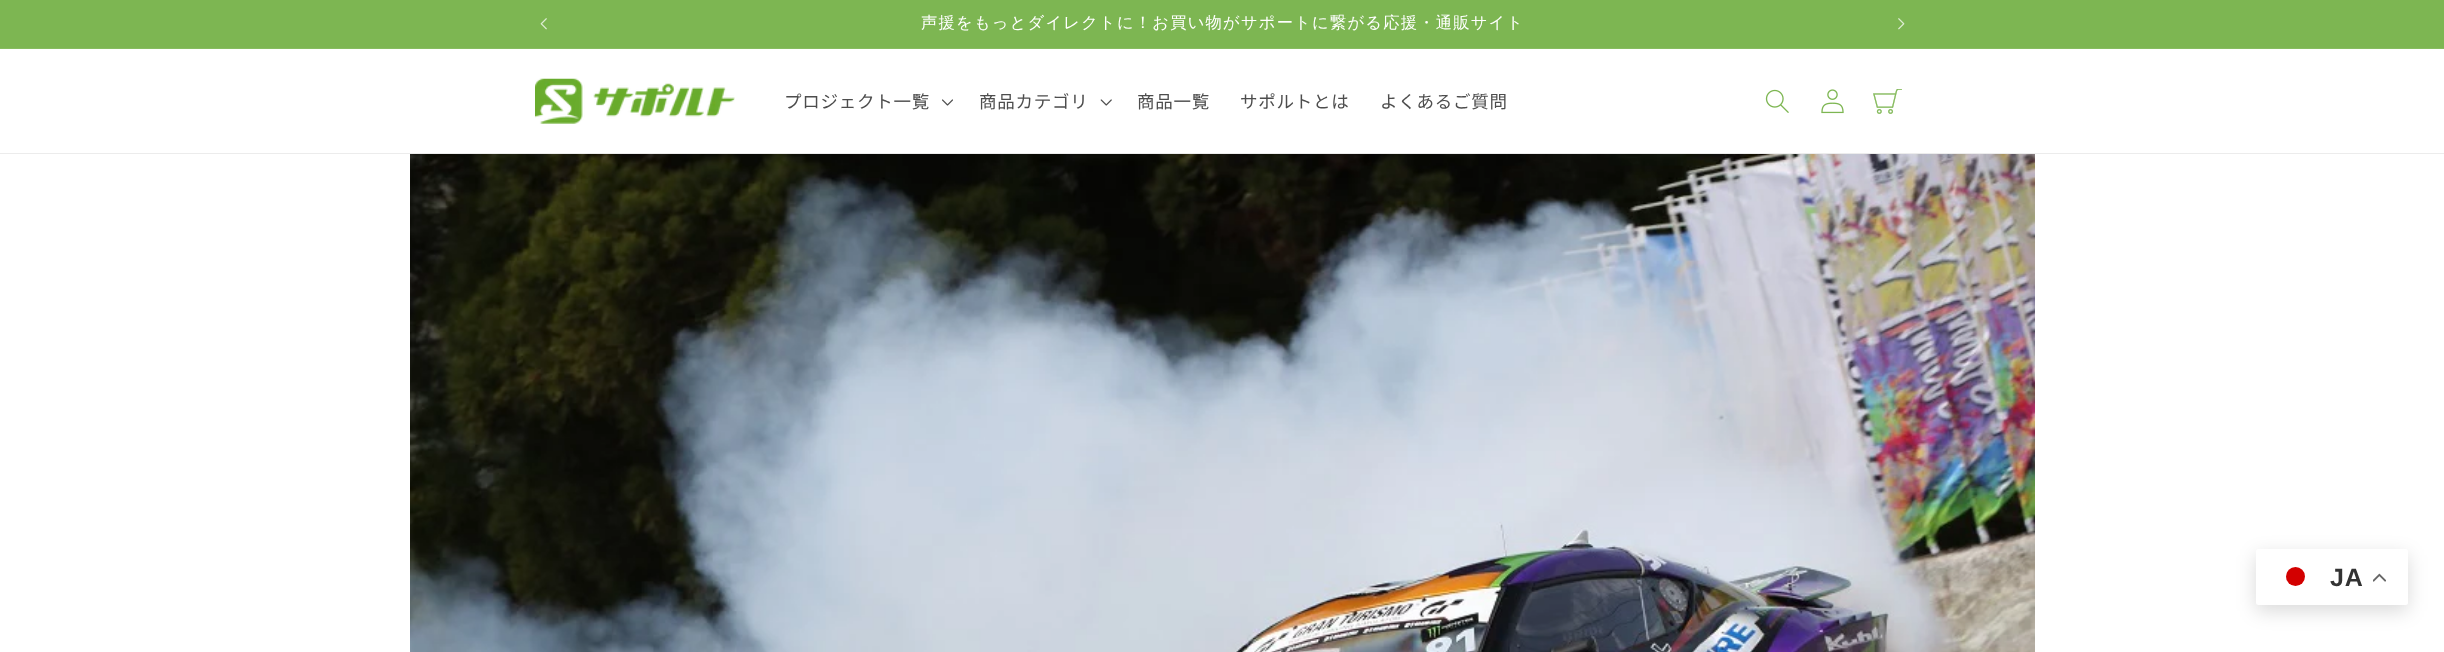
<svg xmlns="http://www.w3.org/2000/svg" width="2444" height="652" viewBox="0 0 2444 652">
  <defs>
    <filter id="blur1" x="-50%" y="-200%" width="200%" height="500%"><feGaussianBlur stdDeviation="9.5"/></filter>
  </defs>
  <rect width="100%" height="100%" fill="#ffffff"/>
  <rect x="0" y="0" width="2444" height="48" fill="#7db652"/>
  <rect x="0" y="48" width="2444" height="1" fill="#87bc60"/>
  <image x="540" y="18" width="7" height="12" href="img1.png"/>
  <text x="921" y="28" font-family="WenQuanYi Zen Hei" font-size="16.25" font-weight="500" letter-spacing="1.25" fill="#ffffff">声援をもっとダイレクトに！お買い物がサポートに繋がる応援・通販サイト</text>
  <image x="1898" y="18" width="7" height="12" href="img2.png"/>
  <rect x="0" y="153" width="2444" height="1" fill="#ececec"/>
  <image x="535" y="78" width="200" height="46" href="img3.png"/>
  <text x="784" y="108" font-family="Noto Sans JP" font-size="17.5" letter-spacing="0.75" fill="#4d4d4d">プロジェクト一覧</text>
  <image x="942" y="99" width="11" height="7" href="img4.png"/>
  <text x="979" y="108" font-family="Noto Sans JP" font-size="17.5" letter-spacing="0.75" fill="#4d4d4d">商品カテゴリ</text>
  <image x="1100" y="99" width="12" height="7" href="img5.png"/>
  <text x="1137" y="108" font-family="Noto Sans JP" font-size="17.5" letter-spacing="0.75" fill="#4d4d4d">商品一覧</text>
  <text x="1240" y="108" font-family="Noto Sans JP" font-size="17.5" letter-spacing="0.75" fill="#4d4d4d">サポルトとは</text>
  <text x="1380" y="108" font-family="Noto Sans JP" font-size="17.5" letter-spacing="0.75" fill="#4d4d4d">よくあるご質問</text>
  <image x="1765" y="89" width="24" height="24" href="img6.png"/>
  <image x="1821" y="89" width="23" height="25" href="img7.png"/>
  <image x="1873" y="89" width="29" height="25" href="img8.png"/>
  <image x="410" y="154" width="1625" height="498" href="img9.png"/>
  <rect x="2256" y="555" width="152" height="56" rx="2.5" fill="#000000" fill-opacity="0.15" filter="url(#blur1)"/>
  <rect x="2256" y="549" width="152" height="56" rx="2.5" fill="#ffffff"/>
  <circle cx="2295.5" cy="576.5" r="9.5" fill="#d30000"/>
  <text x="2330" y="586" font-family="Liberation Sans" font-size="25" font-weight="bold" letter-spacing="0.75" fill="#333333">JA</text>
  <image x="2373" y="573" width="13" height="9" href="img10.png"/>
</svg>
